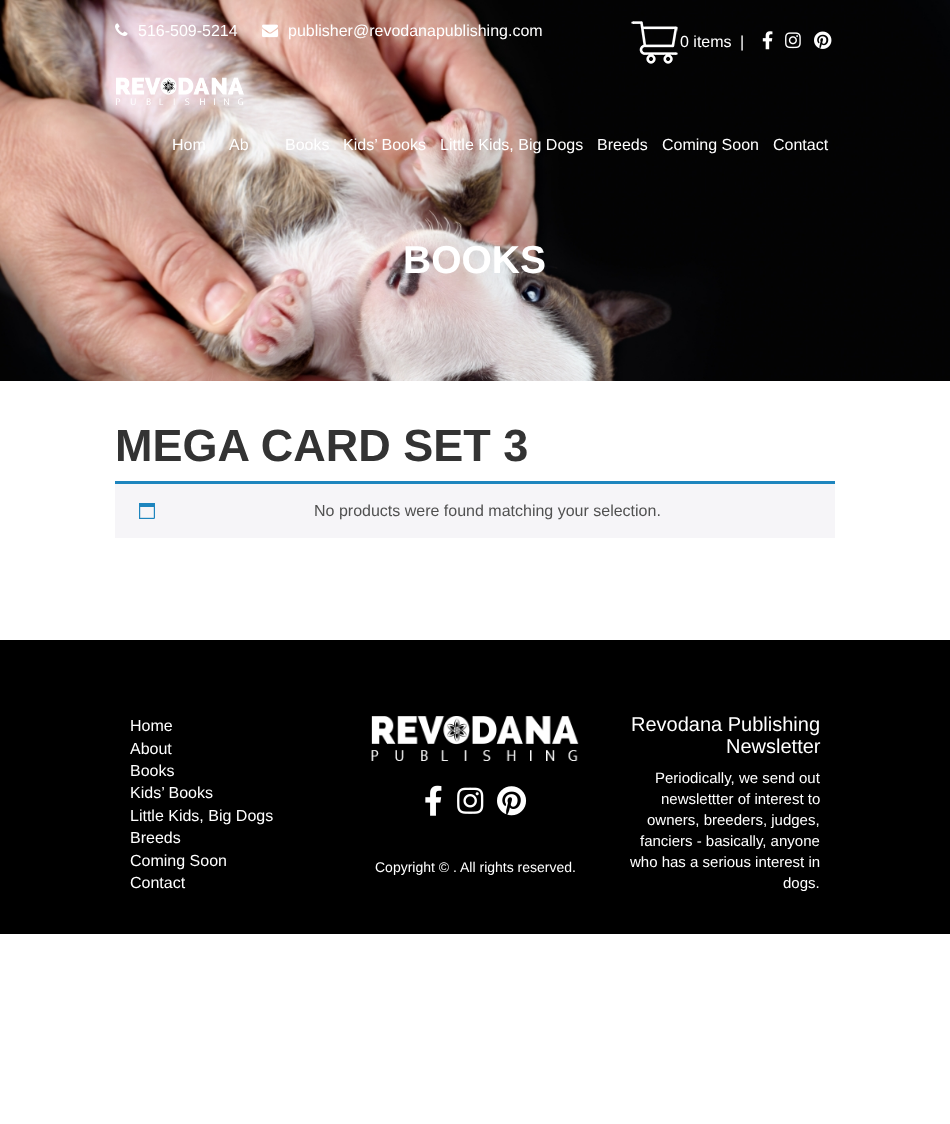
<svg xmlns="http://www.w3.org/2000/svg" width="950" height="1124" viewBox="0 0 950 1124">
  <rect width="100%" height="100%" fill="#ffffff"/>
  <image x="0" y="0" width="950" height="381" href="img8.png"/>
  <image x="115" y="23" width="13" height="13" href="img1.png"/>
  <text x="138" y="36" font-family="Liberation Sans" font-size="16" fill="#ffffff">516-509-5214</text>
  <image x="262" y="24" width="16" height="14" href="img2.png"/>
  <text x="288" y="36" font-family="Liberation Sans" font-size="16" fill="#ffffff">publisher@revodanapublishing.com</text>
  <image x="631" y="21" width="47" height="43" href="img3.png"/>
  <text x="680" y="47" font-family="Liberation Sans" font-size="16" fill="#ffffff">0 items</text>
  <text x="740" y="47" font-family="Liberation Sans" font-size="16" fill="#ffffff">|</text>
  <image x="762" y="31" width="11" height="19" href="img4.png"/>
  <image x="785" y="32" width="16" height="17" href="img5.png"/>
  <image x="814" y="31" width="18" height="18" href="img6.png"/>
  <image x="115" y="77" width="129" height="28" href="img7.png"/>
  <text x="172" y="150" font-family="Liberation Sans" font-size="16" fill="#ffffff">Hom</text>
  <text x="229" y="150" font-family="Liberation Sans" font-size="16" fill="#ffffff">Ab</text>
  <text x="285" y="150" font-family="Liberation Sans" font-size="16" fill="#ffffff">Books</text>
  <text x="343" y="150" font-family="Liberation Sans" font-size="16" fill="#ffffff">Kids’ Books</text>
  <text x="440" y="150" font-family="Liberation Sans" font-size="16" fill="#ffffff">Little Kids, Big Dogs</text>
  <text x="597" y="150" font-family="Liberation Sans" font-size="16" fill="#ffffff">Breeds</text>
  <text x="662" y="150" font-family="Liberation Sans" font-size="16" fill="#ffffff">Coming Soon</text>
  <text x="773" y="150" font-family="Liberation Sans" font-size="16" fill="#ffffff">Contact</text>
  <text x="403" y="273" font-family="Liberation Sans" font-size="39" font-weight="bold" fill="#ffffff">BOOKS</text>
  <text x="115" y="461" font-family="Liberation Sans" font-size="45" font-weight="bold" fill="#333333">MEGA CARD SET 3</text>
  <rect x="115" y="484" width="720" height="54" fill="#f6f5f8"/>
  <rect x="115" y="481" width="720" height="3" fill="#1e85be"/>
  <image x="139" y="503" width="16" height="16" href="img9.png"/>
  <text x="314" y="516" font-family="Liberation Sans" font-size="16" fill="#515151">No products were found matching your selection.</text>
  <rect x="0" y="640" width="950" height="294" fill="#000000"/>
  <text x="130" y="731" font-family="Liberation Sans" font-size="16" fill="#ffffff">Home</text>
  <text x="130" y="754" font-family="Liberation Sans" font-size="16" fill="#ffffff">About</text>
  <text x="130" y="776" font-family="Liberation Sans" font-size="16" fill="#ffffff">Books</text>
  <text x="130" y="798" font-family="Liberation Sans" font-size="16" fill="#ffffff">Kids’ Books</text>
  <text x="130" y="821" font-family="Liberation Sans" font-size="16" fill="#ffffff">Little Kids, Big Dogs</text>
  <text x="130" y="843" font-family="Liberation Sans" font-size="16" fill="#ffffff">Breeds</text>
  <text x="130" y="866" font-family="Liberation Sans" font-size="16" fill="#ffffff">Coming Soon</text>
  <text x="130" y="888" font-family="Liberation Sans" font-size="16" fill="#ffffff">Contact</text>
  <image x="371" y="716" width="208" height="45" href="img10.png"/>
  <image x="425" y="785" width="17" height="31" href="img11.png"/>
  <image x="457" y="787" width="27" height="27" href="img12.png"/>
  <image x="497" y="786" width="30" height="30" href="img13.png"/>
  <text x="375" y="872" font-family="Liberation Sans" font-size="14" fill="#ffffff">Copyright © . All rights reserved.</text>
  <text x="631" y="731" font-family="Liberation Sans" font-size="20" fill="#ffffff">Revodana Publishing</text>
  <text x="726" y="753" font-family="Liberation Sans" font-size="20" fill="#ffffff">Newsletter</text>
  <text x="655" y="783" font-family="Liberation Sans" font-size="15" fill="#ffffff">Periodically, we send out</text>
  <text x="661" y="804" font-family="Liberation Sans" font-size="15" fill="#ffffff">newslettter of interest to</text>
  <text x="647" y="825" font-family="Liberation Sans" font-size="15" fill="#ffffff">owners, breeders, judges,</text>
  <text x="640" y="846" font-family="Liberation Sans" font-size="15" fill="#ffffff">fanciers - basically, anyone</text>
  <text x="630" y="867" font-family="Liberation Sans" font-size="15" fill="#ffffff">who has a serious interest in</text>
  <text x="783" y="888" font-family="Liberation Sans" font-size="15" fill="#ffffff">dogs.</text>
</svg>
